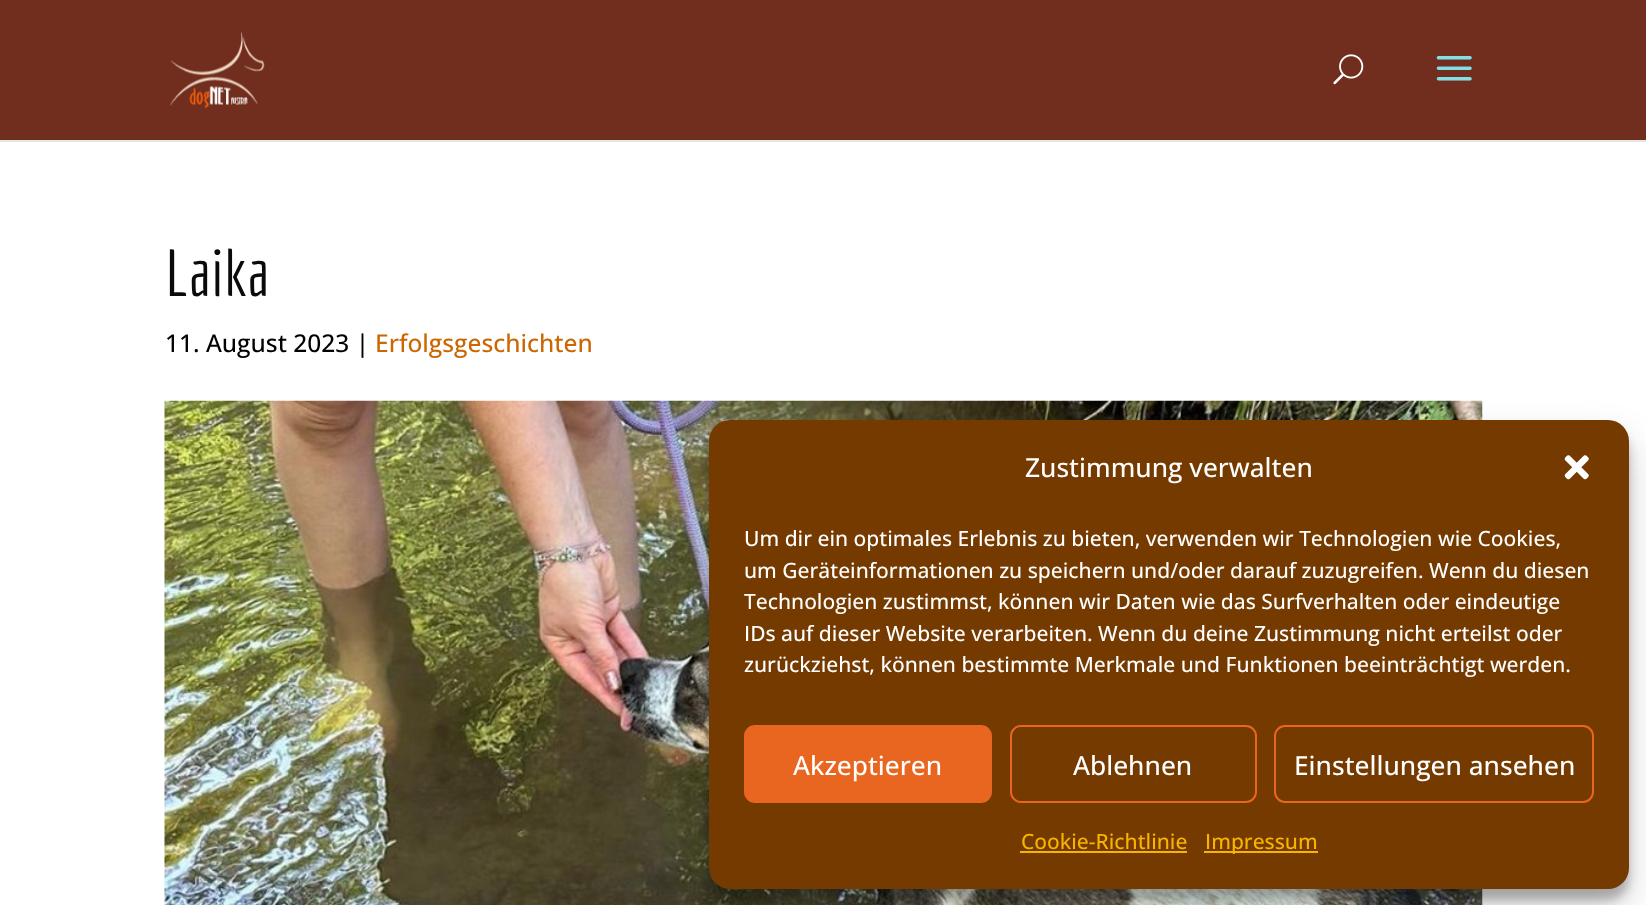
<svg xmlns="http://www.w3.org/2000/svg" width="1646" height="905" viewBox="0 0 1646 905">
  <defs>
    <filter id="blur1" x="-50%" y="-200%" width="200%" height="500%"><feGaussianBlur stdDeviation="5"/></filter>
    <filter id="blur2" x="-50%" y="-200%" width="200%" height="500%"><feGaussianBlur stdDeviation="17.5"/></filter>
  </defs>
  <rect width="100%" height="100%" fill="#ffffff"/>
  <path d="M0 140V142H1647V2V140Z" fill="#e6e6e6"/>
  <rect x="0" y="0" width="1646" height="140" fill="#712e1e"/>
  <image x="169" y="31" width="96" height="78" href="img1.png"/>
  <image x="1333" y="54" width="31" height="31" href="img2.png"/>
  <image x="1436" y="56" width="36" height="25" href="img3.png"/>
  <text x="165" y="296" font-family="Economica" font-size="65" fill="#0a0a0a">Laika</text>
  <text x="165" y="352" font-family="Open Sans" font-size="24.5" font-weight="500" fill="#000000">11. August 2023 |</text>
  <text x="375" y="352" font-family="Open Sans" font-size="24.5" font-weight="500" fill="#cc6600">Erfolgsgeschichten</text>
  <image x="164" y="400" width="1319" height="505" href="img4.png"/>
  <rect x="709" y="431" width="920" height="469" rx="21" fill="#000000" fill-opacity="0.23" filter="url(#blur1)"/>
  <rect x="709" y="438" width="920" height="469" rx="21" fill="#000000" fill-opacity="0.19" filter="url(#blur2)"/>
  <rect x="709" y="420" width="920" height="469" rx="21" fill="#753a00"/>
  <text x="1025" y="477" font-family="Open Sans" font-size="26.25" font-weight="500" fill="#ffffff">Zustimmung verwalten</text>
  <image x="1564" y="455" width="25" height="25" href="img5.png"/>
  <text x="744" y="546" font-family="Open Sans" font-size="21" font-weight="500" fill="#ffffff">Um dir ein optimales Erlebnis zu bieten, verwenden wir Technologien wie Cookies,</text>
  <text x="744" y="578" font-family="Open Sans" font-size="21" font-weight="500" fill="#ffffff">um Geräteinformationen zu speichern und/oder darauf zuzugreifen. Wenn du diesen</text>
  <text x="744" y="609" font-family="Open Sans" font-size="21" font-weight="500" fill="#ffffff">Technologien zustimmst, können wir Daten wie das Surfverhalten oder eindeutige</text>
  <text x="744" y="641" font-family="Open Sans" font-size="21" font-weight="500" fill="#ffffff">IDs auf dieser Website verarbeiten. Wenn du deine Zustimmung nicht erteilst oder</text>
  <text x="744" y="672" font-family="Open Sans" font-size="21" font-weight="500" fill="#ffffff">zurückziehst, können bestimmte Merkmale und Funktionen beeinträchtigt werden.</text>
  <rect x="745" y="726" width="246" height="76" rx="10" fill="#e8661f" stroke="#e8661f" stroke-width="2"/>
  <text x="793" y="775" font-family="Open Sans" font-size="26.25" font-weight="500" fill="#ffffff">Akzeptieren</text>
  <rect x="1011" y="726" width="245" height="76" rx="10" fill="none" stroke="#e8661f" stroke-width="2"/>
  <text x="1073" y="775" font-family="Open Sans" font-size="26.25" font-weight="500" fill="#ffffff">Ablehnen</text>
  <rect x="1275" y="726" width="318" height="76" rx="10" fill="none" stroke="#e8661f" stroke-width="2"/>
  <text x="1294" y="775" font-family="Open Sans" font-size="26.25" font-weight="500" fill="#ffffff">Einstellungen ansehen</text>
  <text x="1021" y="849" font-family="Open Sans" font-size="21" font-weight="500" fill="#f7b500">Cookie-Richtlinie</text>
  <rect x="1020" y="851" width="167" height="2" fill="#f7b500"/>
  <rect x="1204" y="851" width="114" height="2" fill="#f7b500"/>
  <text x="1205" y="849" font-family="Open Sans" font-size="21" font-weight="500" fill="#f7b500">Impressum</text>
</svg>
